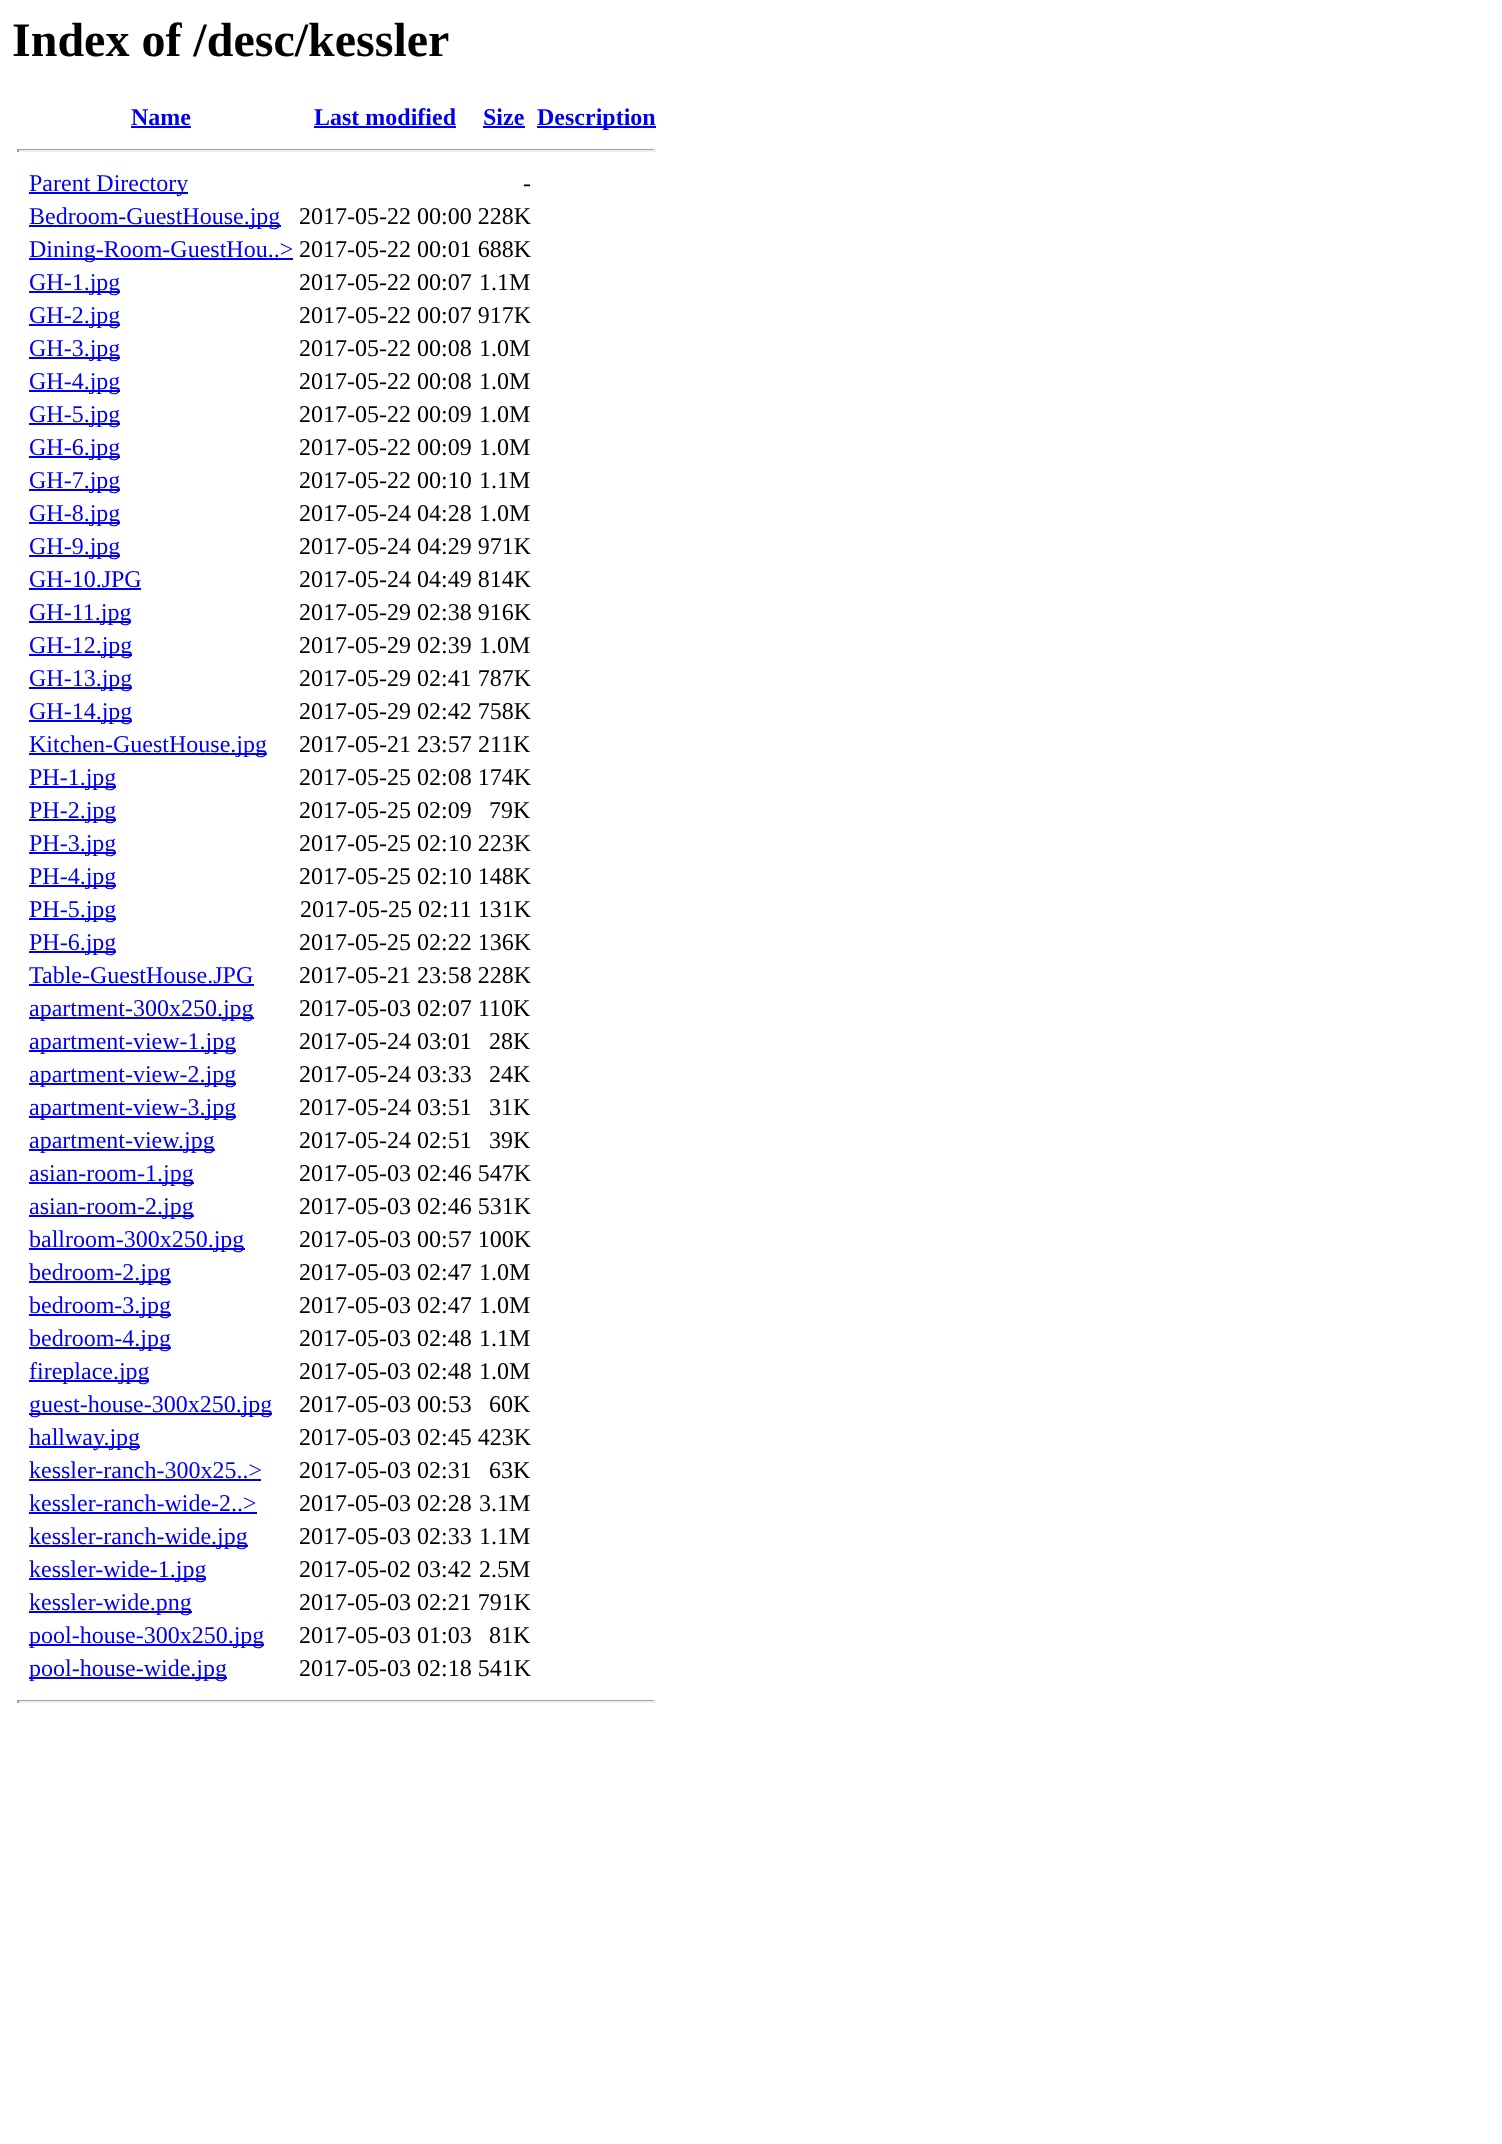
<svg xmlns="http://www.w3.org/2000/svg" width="1502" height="2144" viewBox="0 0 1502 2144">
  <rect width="100%" height="100%" fill="#ffffff"/>
  <text x="12" y="56" font-family="Liberation Serif" font-size="48" font-weight="bold" fill="#000000">Index of /desc/kessler</text>
  <text x="131" y="125" font-family="Liberation Serif" font-size="24" font-weight="bold" fill="#0000ee">Name</text>
  <rect x="131" y="126" width="60" height="2" fill="#0000ee"/>
  <text x="314" y="125" font-family="Liberation Serif" font-size="24" font-weight="bold" fill="#0000ee">Last modified</text>
  <rect x="314" y="126" width="142" height="2" fill="#0000ee"/>
  <text x="483" y="125" font-family="Liberation Serif" font-size="24" font-weight="bold" fill="#0000ee">Size</text>
  <rect x="483" y="126" width="42" height="2" fill="#0000ee"/>
  <rect x="537" y="126" width="119" height="2" fill="#0000ee"/>
  <text x="537" y="125" font-family="Liberation Serif" font-size="24" font-weight="bold" fill="#0000ee">Description</text>
  <rect x="17" y="149" width="639" height="1" fill="#9f9f9f"/>
  <rect x="654" y="149" width="2" height="3" fill="#eeeeee"/>
  <rect x="17" y="150" width="639" height="2" fill="#eeeeee"/>
  <rect x="17" y="149" width="2" height="3" fill="#9f9f9f"/>
  <rect x="29" y="192" width="159" height="2" fill="#0000ee"/>
  <text x="29" y="191" font-family="Liberation Serif" font-size="24" fill="#0000ee">Parent Directory</text>
  <text x="523" y="191" font-family="Liberation Serif" font-size="24" fill="#000000">-</text>
  <rect x="29" y="225" width="252" height="2" fill="#0000ee"/>
  <text x="29" y="224" font-family="Liberation Serif" font-size="24" fill="#0000ee">Bedroom-GuestHouse.jpg</text>
  <text x="299" y="224" font-family="Liberation Serif" font-size="24" fill="#000000">2017-05-22 00:00 228K</text>
  <rect x="29" y="258" width="264" height="2" fill="#0000ee"/>
  <text x="29" y="257" font-family="Liberation Serif" font-size="24" fill="#0000ee">Dining-Room-GuestHou..&gt;</text>
  <text x="299" y="257" font-family="Liberation Serif" font-size="24" fill="#000000">2017-05-22 00:01 688K</text>
  <rect x="29" y="291" width="91" height="2" fill="#0000ee"/>
  <text x="29" y="290" font-family="Liberation Serif" font-size="24" fill="#0000ee">GH-1.jpg</text>
  <text x="299" y="290" font-family="Liberation Serif" font-size="24" fill="#000000">2017-05-22 00:07</text>
  <text x="479" y="290" font-family="Liberation Serif" font-size="24" fill="#000000">1.1M</text>
  <rect x="29" y="324" width="91" height="2" fill="#0000ee"/>
  <text x="29" y="323" font-family="Liberation Serif" font-size="24" fill="#0000ee">GH-2.jpg</text>
  <text x="299" y="323" font-family="Liberation Serif" font-size="24" fill="#000000">2017-05-22 00:07 917K</text>
  <rect x="29" y="357" width="91" height="2" fill="#0000ee"/>
  <text x="29" y="356" font-family="Liberation Serif" font-size="24" fill="#0000ee">GH-3.jpg</text>
  <text x="299" y="356" font-family="Liberation Serif" font-size="24" fill="#000000">2017-05-22 00:08</text>
  <text x="479" y="356" font-family="Liberation Serif" font-size="24" fill="#000000">1.0M</text>
  <rect x="29" y="390" width="91" height="2" fill="#0000ee"/>
  <text x="29" y="389" font-family="Liberation Serif" font-size="24" fill="#0000ee">GH-4.jpg</text>
  <text x="299" y="389" font-family="Liberation Serif" font-size="24" fill="#000000">2017-05-22 00:08</text>
  <text x="479" y="389" font-family="Liberation Serif" font-size="24" fill="#000000">1.0M</text>
  <rect x="29" y="423" width="91" height="2" fill="#0000ee"/>
  <text x="29" y="422" font-family="Liberation Serif" font-size="24" fill="#0000ee">GH-5.jpg</text>
  <text x="299" y="422" font-family="Liberation Serif" font-size="24" fill="#000000">2017-05-22 00:09</text>
  <text x="479" y="422" font-family="Liberation Serif" font-size="24" fill="#000000">1.0M</text>
  <rect x="29" y="456" width="91" height="2" fill="#0000ee"/>
  <text x="29" y="455" font-family="Liberation Serif" font-size="24" fill="#0000ee">GH-6.jpg</text>
  <text x="299" y="455" font-family="Liberation Serif" font-size="24" fill="#000000">2017-05-22 00:09</text>
  <text x="479" y="455" font-family="Liberation Serif" font-size="24" fill="#000000">1.0M</text>
  <rect x="29" y="489" width="91" height="2" fill="#0000ee"/>
  <text x="29" y="488" font-family="Liberation Serif" font-size="24" fill="#0000ee">GH-7.jpg</text>
  <text x="299" y="488" font-family="Liberation Serif" font-size="24" fill="#000000">2017-05-22 00:10</text>
  <text x="479" y="488" font-family="Liberation Serif" font-size="24" fill="#000000">1.1M</text>
  <rect x="29" y="522" width="91" height="2" fill="#0000ee"/>
  <text x="29" y="521" font-family="Liberation Serif" font-size="24" fill="#0000ee">GH-8.jpg</text>
  <text x="299" y="521" font-family="Liberation Serif" font-size="24" fill="#000000">2017-05-24 04:28</text>
  <text x="479" y="521" font-family="Liberation Serif" font-size="24" fill="#000000">1.0M</text>
  <rect x="29" y="555" width="91" height="2" fill="#0000ee"/>
  <text x="29" y="554" font-family="Liberation Serif" font-size="24" fill="#0000ee">GH-9.jpg</text>
  <text x="299" y="554" font-family="Liberation Serif" font-size="24" fill="#000000">2017-05-24 04:29 971K</text>
  <text x="29" y="587" font-family="Liberation Serif" font-size="24" fill="#0000ee">GH-10.JPG</text>
  <rect x="29" y="588" width="112" height="2" fill="#0000ee"/>
  <text x="299" y="587" font-family="Liberation Serif" font-size="24" fill="#000000">2017-05-24 04:49 814K</text>
  <rect x="29" y="621" width="102" height="2" fill="#0000ee"/>
  <text x="29" y="620" font-family="Liberation Serif" font-size="24" fill="#0000ee">GH-11.jpg</text>
  <text x="299" y="620" font-family="Liberation Serif" font-size="24" fill="#000000">2017-05-29 02:38 916K</text>
  <rect x="29" y="654" width="103" height="2" fill="#0000ee"/>
  <text x="29" y="653" font-family="Liberation Serif" font-size="24" fill="#0000ee">GH-12.jpg</text>
  <text x="299" y="653" font-family="Liberation Serif" font-size="24" fill="#000000">2017-05-29 02:39</text>
  <text x="479" y="653" font-family="Liberation Serif" font-size="24" fill="#000000">1.0M</text>
  <rect x="29" y="687" width="103" height="2" fill="#0000ee"/>
  <text x="29" y="686" font-family="Liberation Serif" font-size="24" fill="#0000ee">GH-13.jpg</text>
  <text x="299" y="686" font-family="Liberation Serif" font-size="24" fill="#000000">2017-05-29 02:41 787K</text>
  <rect x="29" y="720" width="103" height="2" fill="#0000ee"/>
  <text x="29" y="719" font-family="Liberation Serif" font-size="24" fill="#0000ee">GH-14.jpg</text>
  <text x="299" y="719" font-family="Liberation Serif" font-size="24" fill="#000000">2017-05-29 02:42 758K</text>
  <rect x="29" y="753" width="238" height="2" fill="#0000ee"/>
  <text x="29" y="752" font-family="Liberation Serif" font-size="24" fill="#0000ee">Kitchen-GuestHouse.jpg</text>
  <text x="299" y="752" font-family="Liberation Serif" font-size="24" fill="#000000">2017-05-21 23:57</text>
  <text x="478" y="752" font-family="Liberation Serif" font-size="24" fill="#000000">211K</text>
  <rect x="29" y="786" width="87" height="2" fill="#0000ee"/>
  <text x="29" y="785" font-family="Liberation Serif" font-size="24" fill="#0000ee">PH-1.jpg</text>
  <text x="299" y="785" font-family="Liberation Serif" font-size="24" fill="#000000">2017-05-25 02:08 174K</text>
  <rect x="29" y="819" width="87" height="2" fill="#0000ee"/>
  <text x="29" y="818" font-family="Liberation Serif" font-size="24" fill="#0000ee">PH-2.jpg</text>
  <text x="299" y="818" font-family="Liberation Serif" font-size="24" fill="#000000">2017-05-25 02:09</text>
  <text x="489" y="818" font-family="Liberation Serif" font-size="24" fill="#000000">79K</text>
  <rect x="29" y="852" width="87" height="2" fill="#0000ee"/>
  <text x="29" y="851" font-family="Liberation Serif" font-size="24" fill="#0000ee">PH-3.jpg</text>
  <text x="299" y="851" font-family="Liberation Serif" font-size="24" fill="#000000">2017-05-25 02:10 223K</text>
  <rect x="29" y="885" width="87" height="2" fill="#0000ee"/>
  <text x="29" y="884" font-family="Liberation Serif" font-size="24" fill="#0000ee">PH-4.jpg</text>
  <text x="299" y="884" font-family="Liberation Serif" font-size="24" fill="#000000">2017-05-25 02:10 148K</text>
  <rect x="29" y="918" width="87" height="2" fill="#0000ee"/>
  <text x="29" y="917" font-family="Liberation Serif" font-size="24" fill="#0000ee">PH-5.jpg</text>
  <text x="300" y="917" font-family="Liberation Serif" font-size="24" fill="#000000">2017-05-25 02:11 131K</text>
  <rect x="29" y="951" width="87" height="2" fill="#0000ee"/>
  <text x="29" y="950" font-family="Liberation Serif" font-size="24" fill="#0000ee">PH-6.jpg</text>
  <text x="299" y="950" font-family="Liberation Serif" font-size="24" fill="#000000">2017-05-25 02:22 136K</text>
  <text x="29" y="983" font-family="Liberation Serif" font-size="24" fill="#0000ee">Table-GuestHouse.JPG</text>
  <rect x="29" y="984" width="225" height="2" fill="#0000ee"/>
  <text x="299" y="983" font-family="Liberation Serif" font-size="24" fill="#000000">2017-05-21 23:58 228K</text>
  <rect x="29" y="1017" width="225" height="2" fill="#0000ee"/>
  <text x="29" y="1016" font-family="Liberation Serif" font-size="24" fill="#0000ee">apartment-300x250.jpg</text>
  <text x="299" y="1016" font-family="Liberation Serif" font-size="24" fill="#000000">2017-05-03 02:07</text>
  <text x="478" y="1016" font-family="Liberation Serif" font-size="24" fill="#000000">110K</text>
  <rect x="29" y="1050" width="207" height="2" fill="#0000ee"/>
  <text x="29" y="1049" font-family="Liberation Serif" font-size="24" fill="#0000ee">apartment-view-1.jpg</text>
  <text x="299" y="1049" font-family="Liberation Serif" font-size="24" fill="#000000">2017-05-24 03:01</text>
  <text x="489" y="1049" font-family="Liberation Serif" font-size="24" fill="#000000">28K</text>
  <rect x="29" y="1083" width="207" height="2" fill="#0000ee"/>
  <text x="29" y="1082" font-family="Liberation Serif" font-size="24" fill="#0000ee">apartment-view-2.jpg</text>
  <text x="299" y="1082" font-family="Liberation Serif" font-size="24" fill="#000000">2017-05-24 03:33</text>
  <text x="489" y="1082" font-family="Liberation Serif" font-size="24" fill="#000000">24K</text>
  <rect x="29" y="1116" width="207" height="2" fill="#0000ee"/>
  <text x="29" y="1115" font-family="Liberation Serif" font-size="24" fill="#0000ee">apartment-view-3.jpg</text>
  <text x="299" y="1115" font-family="Liberation Serif" font-size="24" fill="#000000">2017-05-24 03:51</text>
  <text x="489" y="1115" font-family="Liberation Serif" font-size="24" fill="#000000">31K</text>
  <rect x="29" y="1149" width="186" height="2" fill="#0000ee"/>
  <text x="29" y="1148" font-family="Liberation Serif" font-size="24" fill="#0000ee">apartment-view.jpg</text>
  <text x="299" y="1148" font-family="Liberation Serif" font-size="24" fill="#000000">2017-05-24 02:51</text>
  <text x="489" y="1148" font-family="Liberation Serif" font-size="24" fill="#000000">39K</text>
  <rect x="29" y="1182" width="165" height="2" fill="#0000ee"/>
  <text x="29" y="1181" font-family="Liberation Serif" font-size="24" fill="#0000ee">asian-room-1.jpg</text>
  <text x="299" y="1181" font-family="Liberation Serif" font-size="24" fill="#000000">2017-05-03 02:46 547K</text>
  <rect x="29" y="1215" width="165" height="2" fill="#0000ee"/>
  <text x="29" y="1214" font-family="Liberation Serif" font-size="24" fill="#0000ee">asian-room-2.jpg</text>
  <text x="299" y="1214" font-family="Liberation Serif" font-size="24" fill="#000000">2017-05-03 02:46 531K</text>
  <rect x="29" y="1248" width="216" height="2" fill="#0000ee"/>
  <text x="29" y="1247" font-family="Liberation Serif" font-size="24" fill="#0000ee">ballroom-300x250.jpg</text>
  <text x="299" y="1247" font-family="Liberation Serif" font-size="24" fill="#000000">2017-05-03 00:57 100K</text>
  <rect x="29" y="1281" width="142" height="2" fill="#0000ee"/>
  <text x="29" y="1280" font-family="Liberation Serif" font-size="24" fill="#0000ee">bedroom-2.jpg</text>
  <text x="299" y="1280" font-family="Liberation Serif" font-size="24" fill="#000000">2017-05-03 02:47</text>
  <text x="479" y="1280" font-family="Liberation Serif" font-size="24" fill="#000000">1.0M</text>
  <rect x="29" y="1314" width="142" height="2" fill="#0000ee"/>
  <text x="29" y="1313" font-family="Liberation Serif" font-size="24" fill="#0000ee">bedroom-3.jpg</text>
  <text x="299" y="1313" font-family="Liberation Serif" font-size="24" fill="#000000">2017-05-03 02:47</text>
  <text x="479" y="1313" font-family="Liberation Serif" font-size="24" fill="#000000">1.0M</text>
  <rect x="29" y="1347" width="142" height="2" fill="#0000ee"/>
  <text x="29" y="1346" font-family="Liberation Serif" font-size="24" fill="#0000ee">bedroom-4.jpg</text>
  <text x="299" y="1346" font-family="Liberation Serif" font-size="24" fill="#000000">2017-05-03 02:48</text>
  <text x="479" y="1346" font-family="Liberation Serif" font-size="24" fill="#000000">1.1M</text>
  <rect x="29" y="1380" width="120" height="2" fill="#0000ee"/>
  <text x="29" y="1379" font-family="Liberation Serif" font-size="24" fill="#0000ee">fireplace.jpg</text>
  <text x="299" y="1379" font-family="Liberation Serif" font-size="24" fill="#000000">2017-05-03 02:48</text>
  <text x="479" y="1379" font-family="Liberation Serif" font-size="24" fill="#000000">1.0M</text>
  <rect x="29" y="1413" width="243" height="2" fill="#0000ee"/>
  <text x="29" y="1412" font-family="Liberation Serif" font-size="24" fill="#0000ee">guest-house-300x250.jpg</text>
  <text x="299" y="1412" font-family="Liberation Serif" font-size="24" fill="#000000">2017-05-03 00:53</text>
  <text x="489" y="1412" font-family="Liberation Serif" font-size="24" fill="#000000">60K</text>
  <rect x="29" y="1446" width="111" height="2" fill="#0000ee"/>
  <text x="29" y="1445" font-family="Liberation Serif" font-size="24" fill="#0000ee">hallway.jpg</text>
  <text x="299" y="1445" font-family="Liberation Serif" font-size="24" fill="#000000">2017-05-03 02:45 423K</text>
  <text x="29" y="1478" font-family="Liberation Serif" font-size="24" fill="#0000ee">kessler-ranch-300x25..&gt;</text>
  <rect x="29" y="1479" width="232" height="2" fill="#0000ee"/>
  <text x="299" y="1478" font-family="Liberation Serif" font-size="24" fill="#000000">2017-05-03 02:31</text>
  <text x="489" y="1478" font-family="Liberation Serif" font-size="24" fill="#000000">63K</text>
  <text x="29" y="1511" font-family="Liberation Serif" font-size="24" fill="#0000ee">kessler-ranch-wide-2..&gt;</text>
  <rect x="29" y="1512" width="228" height="2" fill="#0000ee"/>
  <text x="299" y="1511" font-family="Liberation Serif" font-size="24" fill="#000000">2017-05-03 02:28</text>
  <text x="479" y="1511" font-family="Liberation Serif" font-size="24" fill="#000000">3.1M</text>
  <rect x="29" y="1545" width="219" height="2" fill="#0000ee"/>
  <text x="29" y="1544" font-family="Liberation Serif" font-size="24" fill="#0000ee">kessler-ranch-wide.jpg</text>
  <text x="299" y="1544" font-family="Liberation Serif" font-size="24" fill="#000000">2017-05-03 02:33</text>
  <text x="479" y="1544" font-family="Liberation Serif" font-size="24" fill="#000000">1.1M</text>
  <rect x="29" y="1578" width="177" height="2" fill="#0000ee"/>
  <text x="29" y="1577" font-family="Liberation Serif" font-size="24" fill="#0000ee">kessler-wide-1.jpg</text>
  <text x="299" y="1577" font-family="Liberation Serif" font-size="24" fill="#000000">2017-05-02 03:42</text>
  <text x="479" y="1577" font-family="Liberation Serif" font-size="24" fill="#000000">2.5M</text>
  <rect x="29" y="1611" width="163" height="2" fill="#0000ee"/>
  <text x="29" y="1610" font-family="Liberation Serif" font-size="24" fill="#0000ee">kessler-wide.png</text>
  <text x="299" y="1610" font-family="Liberation Serif" font-size="24" fill="#000000">2017-05-03 02:21 791K</text>
  <rect x="29" y="1644" width="235" height="2" fill="#0000ee"/>
  <text x="29" y="1643" font-family="Liberation Serif" font-size="24" fill="#0000ee">pool-house-300x250.jpg</text>
  <text x="299" y="1643" font-family="Liberation Serif" font-size="24" fill="#000000">2017-05-03 01:03</text>
  <text x="489" y="1643" font-family="Liberation Serif" font-size="24" fill="#000000">81K</text>
  <rect x="29" y="1677" width="198" height="2" fill="#0000ee"/>
  <text x="29" y="1676" font-family="Liberation Serif" font-size="24" fill="#0000ee">pool-house-wide.jpg</text>
  <text x="299" y="1676" font-family="Liberation Serif" font-size="24" fill="#000000">2017-05-03 02:18 541K</text>
  <rect x="17" y="1700" width="639" height="1" fill="#9f9f9f"/>
  <rect x="654" y="1700" width="2" height="3" fill="#eeeeee"/>
  <rect x="17" y="1701" width="639" height="2" fill="#eeeeee"/>
  <rect x="17" y="1700" width="2" height="3" fill="#9f9f9f"/>
</svg>
